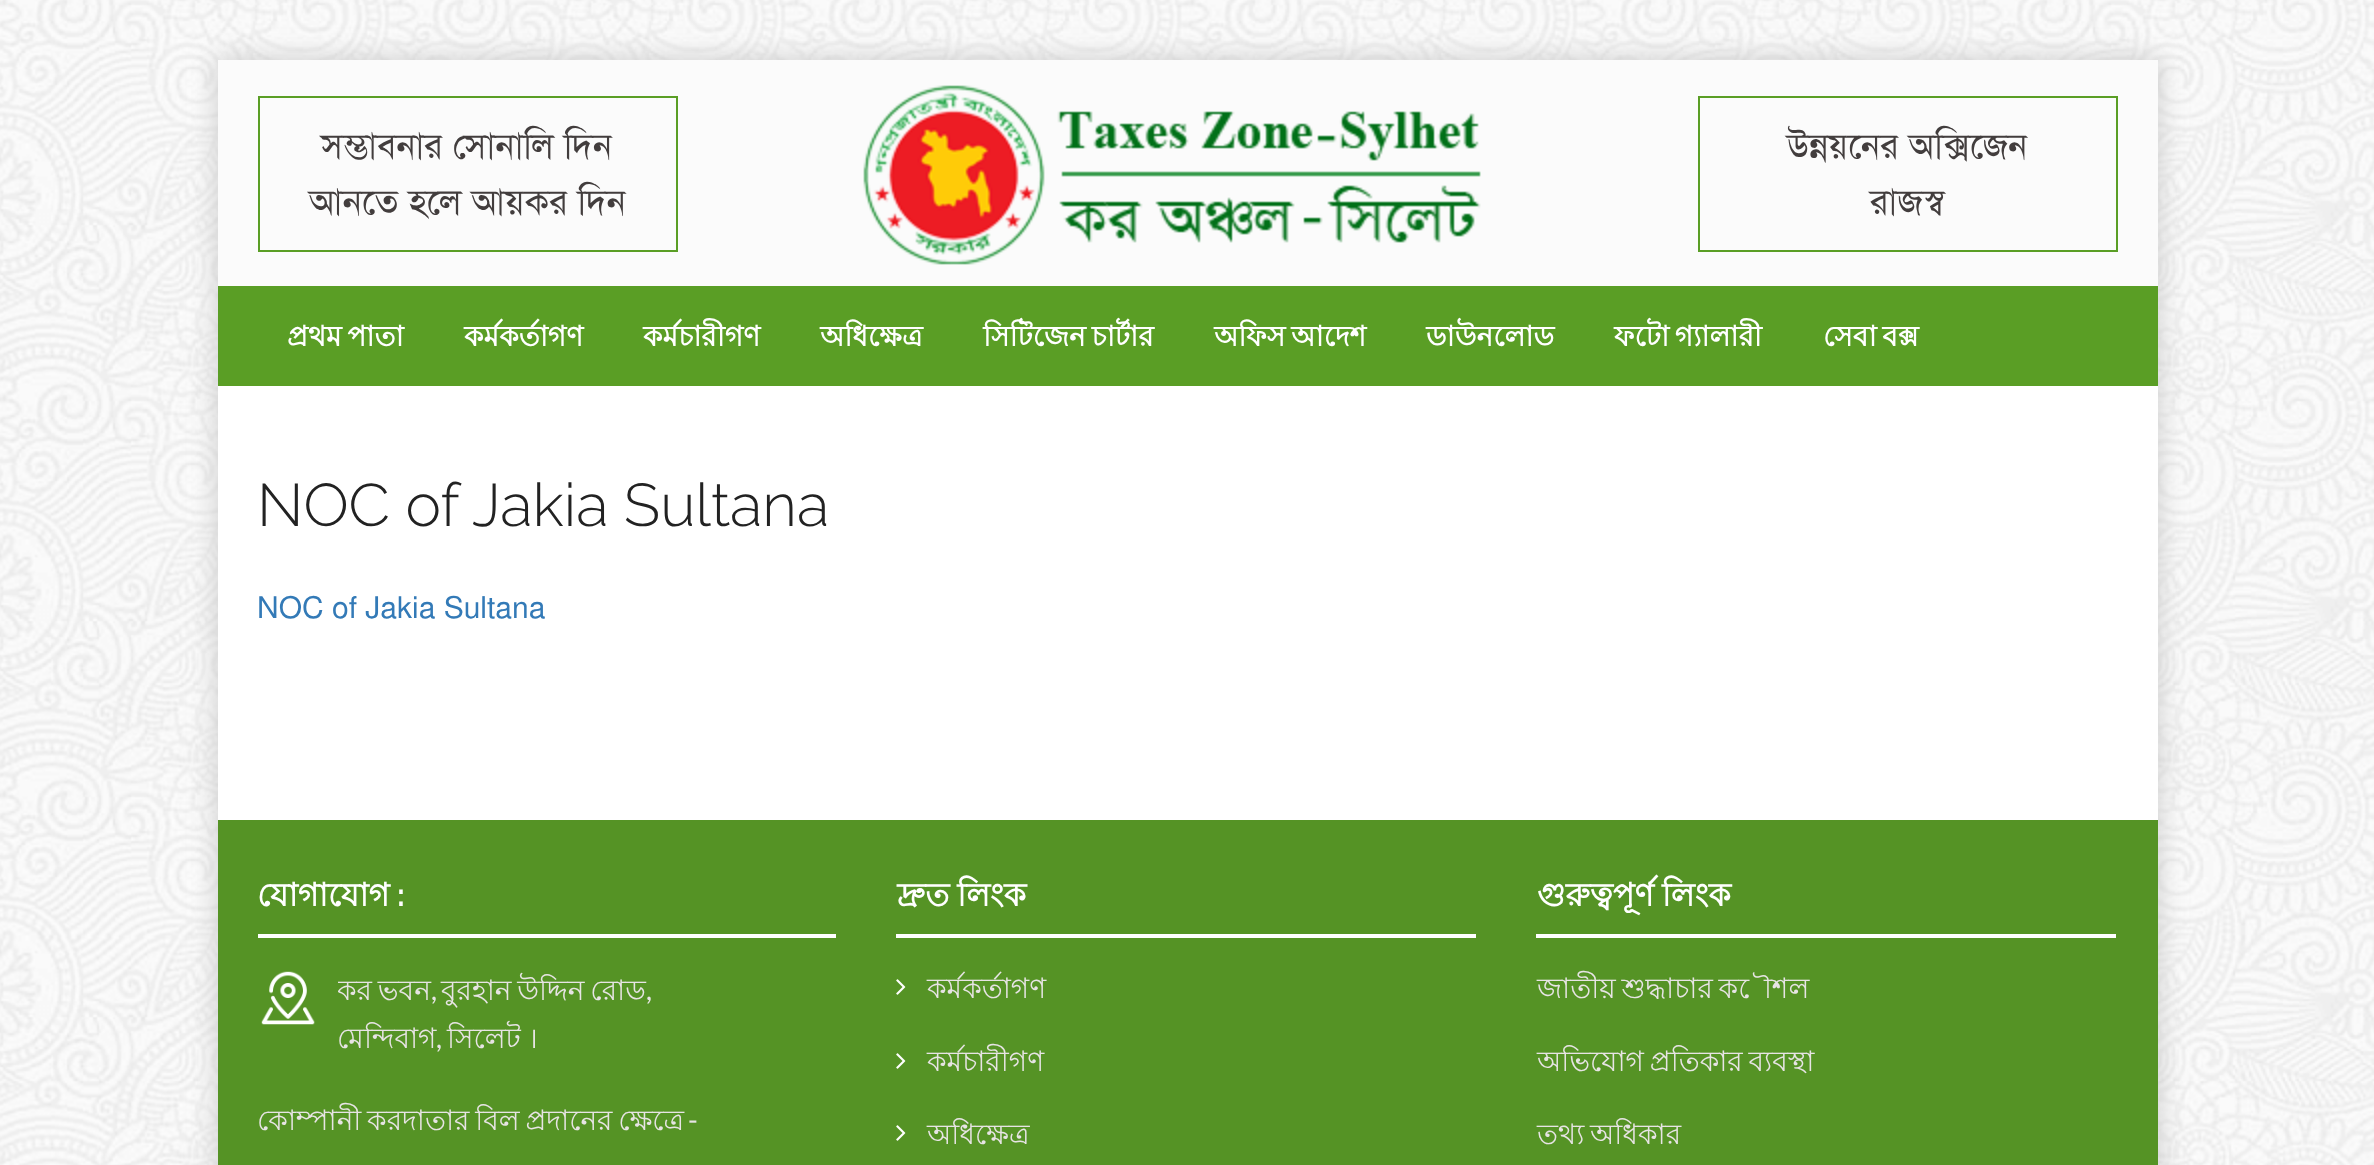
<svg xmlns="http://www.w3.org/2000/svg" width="2374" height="1165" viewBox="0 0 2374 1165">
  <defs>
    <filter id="blur1" x="-50%" y="-200%" width="200%" height="500%"><feGaussianBlur stdDeviation="12"/></filter>
    <clipPath id="clip1"><rect x="338" y="968" width="498" height="96"/></clipPath>
  </defs>
  <rect width="100%" height="100%" fill="#ffffff"/>
  <image x="0" y="0" width="2374" height="1165" href="img1.png"/>
  <rect x="214" y="56" width="1948" height="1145" fill="#c6c6c6" fill-opacity="0.72" filter="url(#blur1)"/>
  <rect x="218" y="386" width="1940" height="434" fill="#ffffff"/>
  <rect x="218" y="60" width="1940" height="226" fill="#fbfbfb"/>
  <rect x="259" y="97" width="418" height="154" fill="none" stroke="#5a9e25" stroke-width="2"/>
  <text x="321" y="158" font-family="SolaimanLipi" font-size="36" fill="#423d3d">সম্ভাবনার সোনালি দিন</text>
  <text x="309" y="214" font-family="SolaimanLipi" font-size="36" fill="#423d3d">আনতে হলে আয়কর দিন</text>
  <image x="863" y="85" width="618" height="180" href="img2.png"/>
  <rect x="1699" y="97" width="418" height="154" fill="none" stroke="#5a9e25" stroke-width="2"/>
  <text x="1787" y="158" font-family="SolaimanLipi" font-size="36" fill="#423d3d">উন্নয়নের অক্সিজেন</text>
  <text x="1870" y="214" font-family="SolaimanLipi" font-size="36" fill="#423d3d">রাজস্ব</text>
  <rect x="218" y="286" width="1940" height="100" fill="#5a9e25"/>
  <text x="287" y="346" word-spacing="-2" font-family="Lohit Bengali" font-size="28" font-weight="bold" fill="#ffffff">প্রথম পাতা</text>
  <text x="464" y="346" font-family="Lohit Bengali" font-size="28" font-weight="bold" fill="#ffffff">কর্মকর্তাগণ</text>
  <text x="643" y="346" font-family="Lohit Bengali" font-size="28" font-weight="bold" fill="#ffffff">কর্মচারীগণ</text>
  <text x="820" y="346" font-family="Lohit Bengali" font-size="28" font-weight="bold" fill="#ffffff">অধিক্ষেত্র</text>
  <text x="983" y="346" word-spacing="-2" font-family="Lohit Bengali" font-size="28" font-weight="bold" fill="#ffffff">সিটিজেন চার্টার</text>
  <text x="1214" y="346" word-spacing="-2" font-family="Lohit Bengali" font-size="28" font-weight="bold" fill="#ffffff">অফিস আদেশ</text>
  <text x="1426" y="346" font-family="Lohit Bengali" font-size="28" font-weight="bold" fill="#ffffff">ডাউনলোড</text>
  <text x="1614" y="346" word-spacing="-2" font-family="Lohit Bengali" font-size="28" font-weight="bold" fill="#ffffff">ফটো গ্যালারী</text>
  <text x="1823" y="346" word-spacing="-2" font-family="Lohit Bengali" font-size="28" font-weight="bold" fill="#ffffff">সেবা বক্স</text>
  <text x="257" y="526" font-family="Raleway" font-size="60" font-weight="300" fill="#222222">NOC of Jakia Sultana</text>
  <text x="257" y="618" font-family="SolaimanLipi" font-size="30" fill="#337ab7">NOC of Jakia Sultana</text>
  <rect x="218" y="820" width="1940" height="345" fill="#559325"/>
  <rect x="258" y="934" width="578" height="4" fill="#ffffff"/>
  <text x="257" y="906" font-family="Lohit Bengali" font-size="32" font-weight="bold" fill="#ffffff">যোগাযোগ</text>
  <text x="397" y="906" font-family="Raleway" font-size="32" font-weight="bold" fill="#ffffff">:</text>
  <image x="261" y="971" width="54" height="54" href="img3.png"/>
  <g clip-path="url(#clip1)">
    <text x="337" y="1000" word-spacing="-2" font-family="Lohit Bengali" font-size="28" fill="#e7e4e4">কর ভবন</text>
  </g>
  <text x="431" y="1000" font-family="Lato" font-size="28" fill="#e7e4e4">,</text>
  <text x="441" y="1000" word-spacing="-2" font-family="Lohit Bengali" font-size="28" fill="#e7e4e4">বুরহান উদ্দিন রোড</text>
  <text x="646" y="1000" font-family="Lato" font-size="28" fill="#e7e4e4">,</text>
  <g clip-path="url(#clip1)">
    <text x="337" y="1048" font-family="Lohit Bengali" font-size="28" fill="#e7e4e4">মেন্দিবাগ</text>
  </g>
  <text x="436" y="1048" font-family="Lato" font-size="28" fill="#e7e4e4">,</text>
  <text x="447" y="1048" word-spacing="-1" font-family="Lohit Bengali" font-size="28" fill="#e7e4e4">সিলেট ।</text>
  <text x="257" y="1130" word-spacing="-2" font-family="Lohit Bengali" font-size="28" fill="#e7e4e4">কোম্পানী করদাতার বিল প্রদানের ক্ষেত্রে</text>
  <text x="688" y="1130" font-family="Lato" font-size="28" fill="#e7e4e4">-</text>
  <rect x="896" y="934" width="580" height="4" fill="#ffffff"/>
  <text x="897" y="906" word-spacing="-1" font-family="Lohit Bengali" font-size="32" font-weight="bold" fill="#ffffff">দ্রুত লিংক</text>
  <image x="896" y="979" width="10" height="16" href="img4.png"/>
  <text x="927" y="998" font-family="Lohit Bengali" font-size="28" fill="#e7e4e4">কর্মকর্তাগণ</text>
  <image x="896" y="1053" width="10" height="16" href="img4.png"/>
  <text x="927" y="1071" font-family="Lohit Bengali" font-size="28" fill="#e7e4e4">কর্মচারীগণ</text>
  <image x="896" y="1125" width="10" height="16" href="img4.png"/>
  <text x="927" y="1144" font-family="Lohit Bengali" font-size="28" fill="#e7e4e4">অধিক্ষেত্র</text>
  <rect x="1536" y="934" width="580" height="4" fill="#ffffff"/>
  <text x="1537" y="906" word-spacing="-1" font-family="Lohit Bengali" font-size="32" font-weight="bold" fill="#ffffff">গুরুত্বপূর্ণ লিংক</text>
  <text x="1537" y="998" word-spacing="-2" font-family="Lohit Bengali" font-size="28" fill="#e7e4e4">জাতীয় শুদ্ধাচার কৌশল</text>
  <text x="1537" y="1071" word-spacing="-2" font-family="Lohit Bengali" font-size="28" fill="#e7e4e4">অভিযোগ প্রতিকার ব্যবস্থা</text>
  <text x="1537" y="1144" word-spacing="-2" font-family="Lohit Bengali" font-size="28" fill="#e7e4e4">তথ্য অধিকার</text>
</svg>
